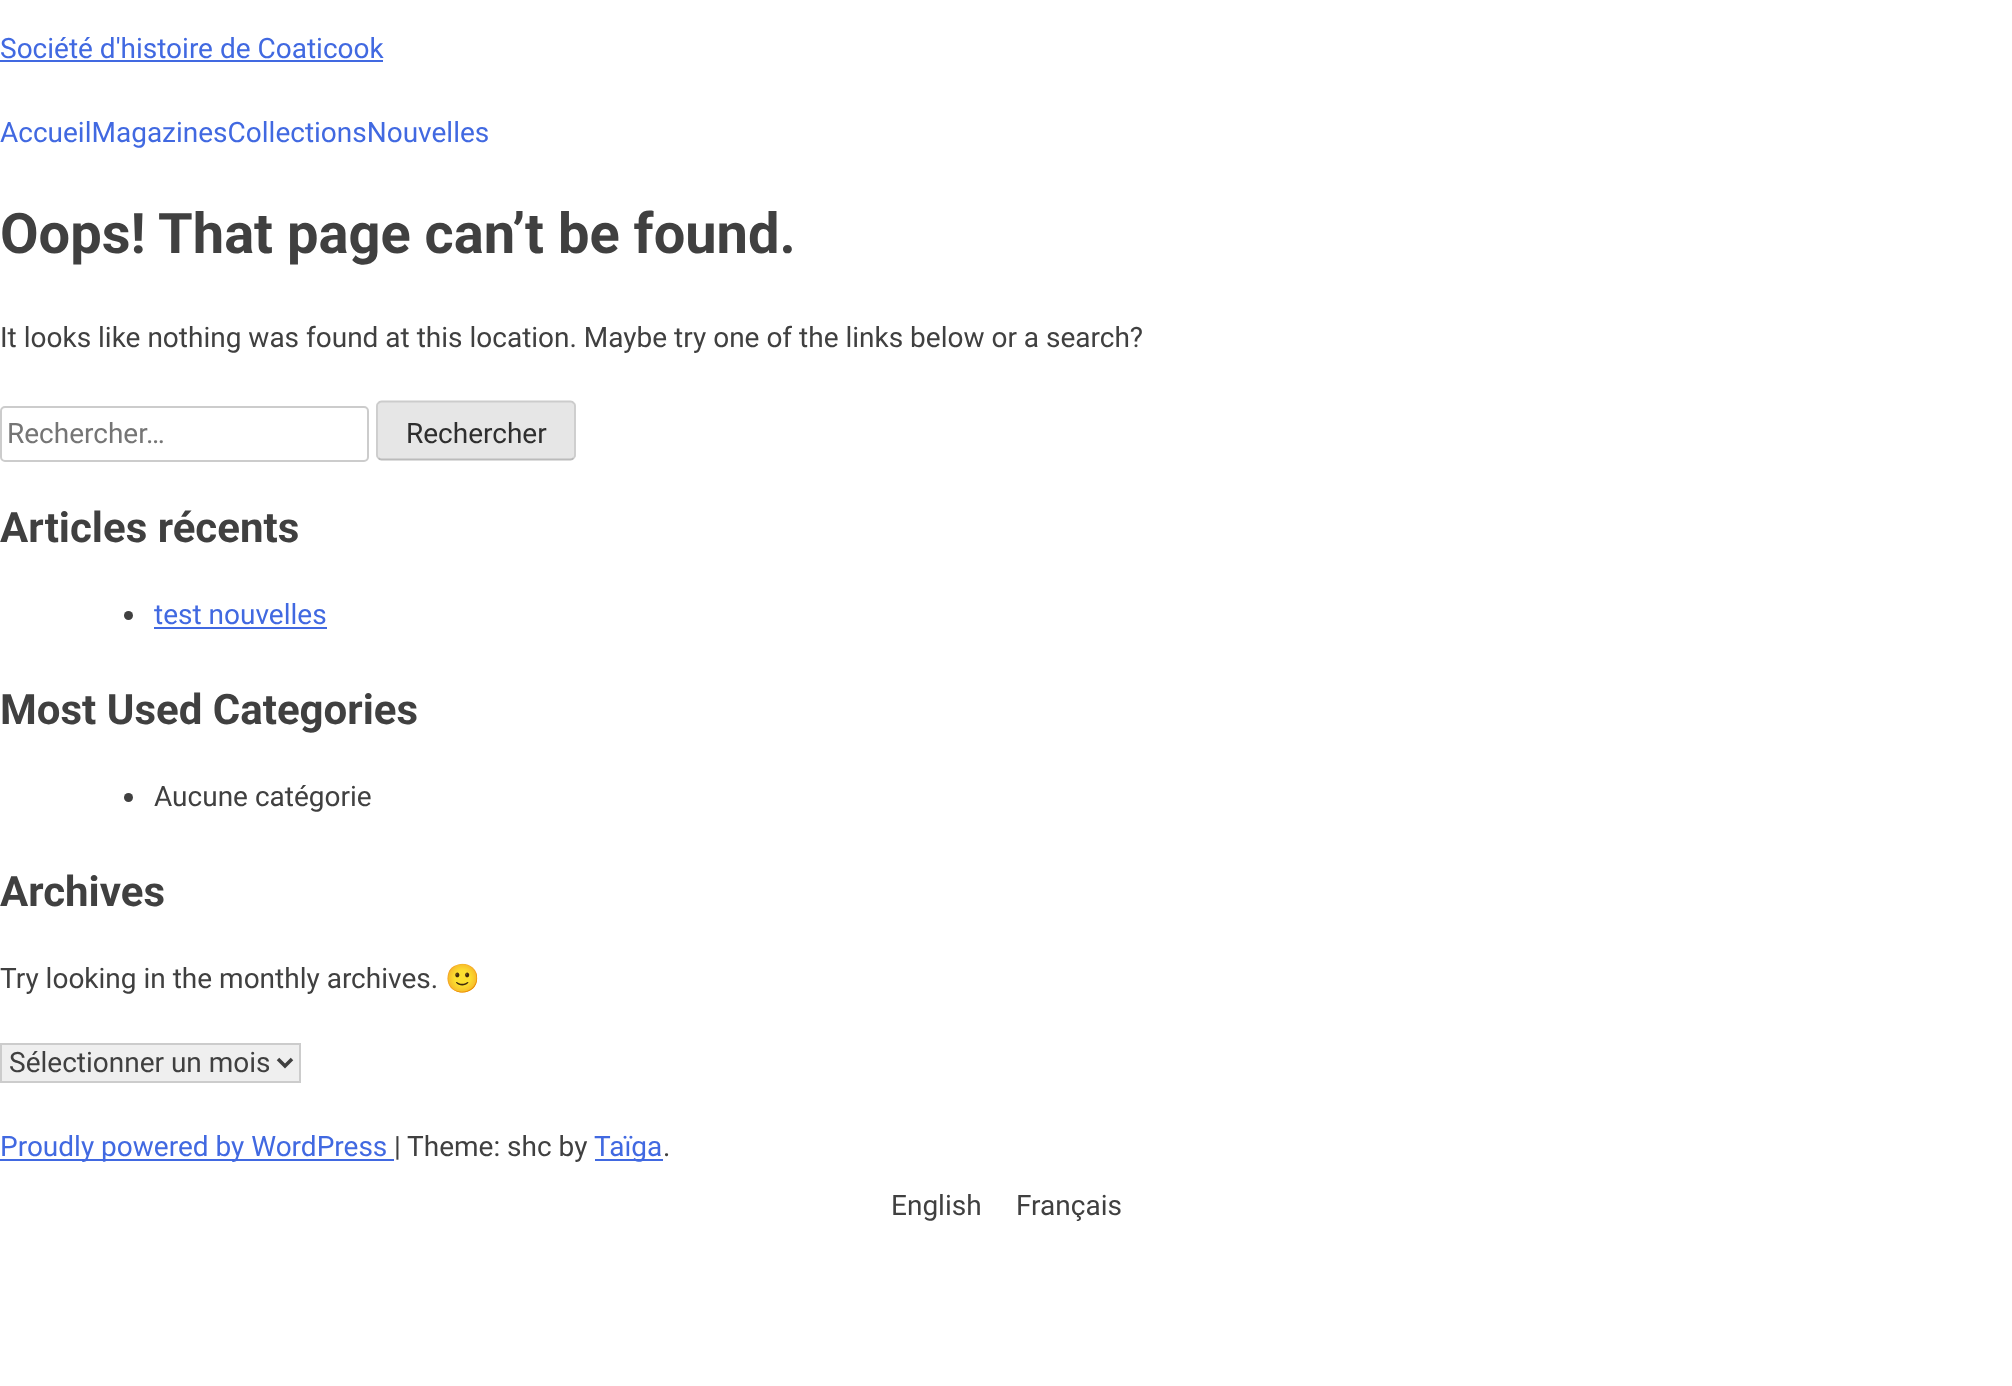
<svg xmlns="http://www.w3.org/2000/svg" width="2012" height="1386" viewBox="0 0 2012 1386">
  <rect width="100%" height="100%" fill="#ffffff"/>
  <text x="0" y="58" font-family="Roboto" font-size="28" fill="#4169e1">Société d'histoire de Coaticook</text>
  <rect x="0" y="60" width="383" height="2" fill="#4169e1"/>
  <text x="0" y="142" font-family="Roboto" font-size="28" fill="#4169e1">AccueilMagazinesCollectionsNouvelles</text>
  <text x="0" y="253" font-family="Roboto" font-size="56" font-weight="bold" fill="#404040">Oops! That page can’t be found.</text>
  <text x="0" y="347" font-family="Roboto" font-size="28" fill="#404040">It looks like nothing was found at this location. Maybe try one of the links below or a search?</text>
  <rect x="1" y="407" width="367" height="54" rx="4" fill="none" stroke="#cccccc" stroke-width="2"/>
  <text x="7" y="443" font-family="Roboto" font-size="28" fill="#757575">Rechercher…</text>
  <rect x="376" y="401" width="200" height="59" rx="5" fill="#e6e6e6"/>
  <path d="M573.5 458C573 459 571.5 459.5 570.5 459.5H381.5C380.5 459.5 379 459 378.5 458" fill="none" stroke="#bbbbbb" stroke-width="1.8"/>
  <path d="M378.5 458C377.5 457.5 377 456 377 455V406C377 405 377.5 403.5 378.5 403C379 402 380.5 401.5 381.5 401.5H570.5C571.5 401.5 573 402 573.5 403C574.5 403.5 575 405 575 406V455C575 456 574.5 457.5 573.5 458" fill="none" stroke="#cccccc" stroke-width="1.8"/>
  <text x="406" y="443" font-family="Roboto" font-size="28" fill="#2e2e2e">Rechercher</text>
  <text x="0" y="542" font-family="Roboto" font-size="42" font-weight="bold" fill="#404040">Articles récents</text>
  <circle cx="128.5" cy="615.5" r="4.5" fill="#404040"/>
  <text x="154" y="624" font-family="Roboto" font-size="28" fill="#4169e1">test nouvelles</text>
  <rect x="154" y="627" width="173" height="2" fill="#4169e1"/>
  <text x="0" y="724" font-family="Roboto" font-size="42" font-weight="bold" fill="#404040">Most Used Categories</text>
  <circle cx="128.5" cy="797.5" r="4.5" fill="#404040"/>
  <text x="154" y="806" font-family="Roboto" font-size="28" fill="#404040">Aucune catégorie</text>
  <text x="0" y="906" font-family="Roboto" font-size="42" font-weight="bold" fill="#404040">Archives</text>
  <text x="0" y="988" font-family="Roboto" font-size="28" fill="#404040">Try looking in the monthly archives.</text>
  <text x="445" y="988" font-family="Noto Color Emoji" font-size="28" fill="#404040">🙂</text>
  <rect x="1" y="1044" width="299" height="38" fill="#efefef" stroke="#cccccc" stroke-width="2"/>
  <path d="M278 1059L285 1066L292 1059" fill="none" stroke="#404040" stroke-width="3.5"/>
  <text x="9" y="1072" font-family="Roboto" font-size="28" fill="#404040">Sélectionner un mois</text>
  <rect x="0" y="1159" width="394" height="2" fill="#4169e1"/>
  <text x="0" y="1156" font-family="Roboto" font-size="28" fill="#4169e1">Proudly powered by WordPress</text>
  <text x="394" y="1156" font-family="Roboto" font-size="28" fill="#404040">|</text>
  <text x="407" y="1156" font-family="Roboto" font-size="28" fill="#404040">Theme: shc by</text>
  <rect x="595" y="1159" width="68" height="2" fill="#4169e1"/>
  <text x="594" y="1156" font-family="Roboto" font-size="28" fill="#4169e1">Taïga</text>
  <text x="663" y="1156" font-family="Roboto" font-size="28" fill="#404040">.</text>
  <text x="891" y="1215" font-family="Roboto" font-size="28" fill="#404040">English</text>
  <text x="1016" y="1215" font-family="Roboto" font-size="28" fill="#404040">Français</text>
</svg>
